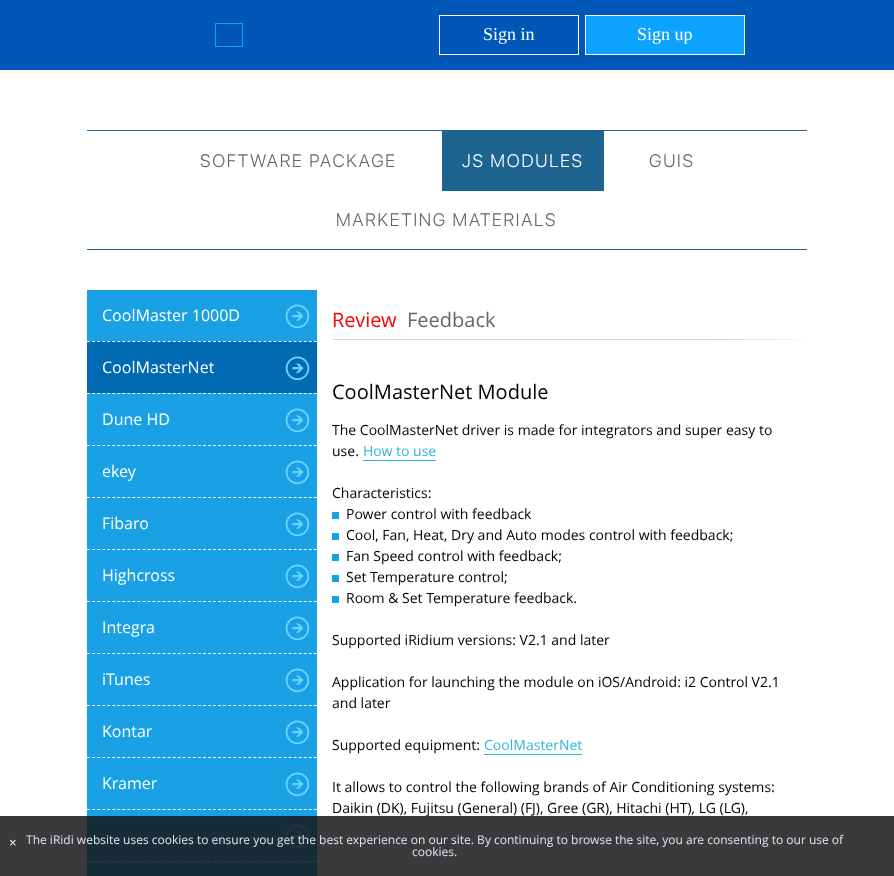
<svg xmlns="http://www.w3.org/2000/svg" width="894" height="876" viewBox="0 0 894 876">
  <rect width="100%" height="100%" fill="#ffffff"/>
  <rect x="0" y="0" width="894" height="70" fill="#0057b7"/>
  <rect x="215.5" y="23.5" width="27" height="23" fill="none" stroke="#0ea2ff"/>
  <rect x="439.5" y="15.5" width="139" height="39" fill="none" stroke="#ffffff"/>
  <text x="483" y="40" font-family="Liberation Serif" font-size="18" fill="#ffffff">Sign in</text>
  <rect x="585.5" y="15.5" width="159" height="39" fill="#0ea2ff" stroke="#ffffff"/>
  <text x="637" y="40" font-family="Liberation Serif" font-size="18" fill="#ffffff">Sign up</text>
  <rect x="87" y="130" width="720" height="1" fill="#1d6491"/>
  <rect x="87" y="249" width="720" height="1" fill="#1d6491"/>
  <text x="200" y="167" font-family="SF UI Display" font-size="18" font-weight="300" letter-spacing="1.75" fill="#666666">SOFTWARE PACKAGE</text>
  <rect x="442" y="131" width="162" height="60" fill="#1d6491"/>
  <text x="462" y="167" font-family="SF UI Display" font-size="18" font-weight="300" letter-spacing="1.75" fill="#ffffff">JS МODULES</text>
  <text x="649" y="167" font-family="SF UI Display" font-size="18" font-weight="300" letter-spacing="1.75" fill="#666666">GUIS</text>
  <text x="336" y="226" font-family="SF UI Display" font-size="18" font-weight="300" letter-spacing="1.75" fill="#666666">MARKETING MATERIALS</text>
  <rect x="87" y="290" width="230" height="51" fill="#1aa1e5"/>
  <image x="285" y="304" width="25" height="25" href="img1.png"/>
  <text x="102" y="321" font-family="Open Sans" font-size="16" fill="#ffffff">CoolMaster 1000D</text>
  <rect x="87" y="341" width="230" height="52" fill="#006ab3"/>
  <image x="285" y="356" width="25" height="25" href="img2.png"/>
  <path d="M87 341.5H317" fill="none" stroke="#ffffff" stroke-dasharray="3 2.04"/>
  <text x="102" y="373" font-family="Open Sans" font-size="16" fill="#ffffff">CoolMasterNet</text>
  <rect x="87" y="393" width="230" height="483" fill="#1aa1e5"/>
  <image x="285" y="408" width="25" height="25" href="img1.png"/>
  <path d="M87 393.5H317" fill="none" stroke="#ffffff" stroke-dasharray="3 2.04"/>
  <text x="102" y="425" font-family="Open Sans" font-size="16" fill="#ffffff">Dune HD</text>
  <image x="285" y="460" width="25" height="25" href="img1.png"/>
  <path d="M87 445.5H317" fill="none" stroke="#ffffff" stroke-dasharray="3 2.04"/>
  <text x="102" y="477" font-family="Open Sans" font-size="16" fill="#ffffff">ekey</text>
  <image x="285" y="512" width="25" height="25" href="img1.png"/>
  <path d="M87 497.5H317" fill="none" stroke="#ffffff" stroke-dasharray="3 2.04"/>
  <text x="102" y="529" font-family="Open Sans" font-size="16" fill="#ffffff">Fibaro</text>
  <image x="285" y="564" width="25" height="25" href="img1.png"/>
  <path d="M87 549.5H317" fill="none" stroke="#ffffff" stroke-dasharray="3 2.04"/>
  <text x="102" y="581" font-family="Open Sans" font-size="16" fill="#ffffff">Highcross</text>
  <image x="285" y="616" width="25" height="25" href="img1.png"/>
  <path d="M87 601.5H317" fill="none" stroke="#ffffff" stroke-dasharray="3 2.04"/>
  <text x="102" y="633" font-family="Open Sans" font-size="16" fill="#ffffff">Integra</text>
  <image x="285" y="668" width="25" height="25" href="img1.png"/>
  <path d="M87 653.5H317" fill="none" stroke="#ffffff" stroke-dasharray="3 2.04"/>
  <text x="102" y="685" font-family="Open Sans" font-size="16" fill="#ffffff">iTunes</text>
  <image x="285" y="720" width="25" height="25" href="img1.png"/>
  <path d="M87 705.5H317" fill="none" stroke="#ffffff" stroke-dasharray="3 2.04"/>
  <text x="102" y="737" font-family="Open Sans" font-size="16" fill="#ffffff">Kontar</text>
  <image x="285" y="772" width="25" height="25" href="img1.png"/>
  <path d="M87 757.5H317" fill="none" stroke="#ffffff" stroke-dasharray="3 2.04"/>
  <text x="102" y="789" font-family="Open Sans" font-size="16" fill="#ffffff">Kramer</text>
  <image x="285" y="824" width="25" height="25" href="img1.png"/>
  <path d="M87 809.5H317" fill="none" stroke="#ffffff" stroke-dasharray="3 2.04"/>
  <path d="M87 861.5H317" fill="none" stroke="#ffffff" stroke-dasharray="3 2.04"/>
  <image x="332" y="339" width="470" height="1" href="img3.png"/>
  <text x="332" y="327" font-family="Open Sans" font-size="20" fill="#ff0000">Review</text>
  <text x="407" y="327" font-family="Open Sans" font-size="20" fill="#666666">Feedback</text>
  <text x="332" y="399" font-family="Open Sans" font-size="20" fill="#000000">CoolMasterNet Module</text>
  <text x="332" y="435" font-family="Open Sans" font-size="14" fill="#000000">The CoolMasterNet driver is made for integrators and super easy to</text>
  <text x="332" y="456" font-family="Open Sans" font-size="14" fill="#000000">use.</text>
  <text x="363" y="456" font-family="Open Sans" font-size="14" fill="#2cb5dc">How to use</text>
  <rect x="363" y="460" width="73" height="1" fill="#2cb5dc"/>
  <text x="332" y="498" font-family="Open Sans" font-size="14" fill="#000000">Characteristics:</text>
  <rect x="332" y="512" width="7" height="7" fill="#1aa1e5"/>
  <text x="346" y="519" font-family="Open Sans" font-size="14" fill="#000000">Power control with feedback</text>
  <rect x="332" y="533" width="7" height="7" fill="#1aa1e5"/>
  <text x="346" y="540" font-family="Open Sans" font-size="14" fill="#000000">Cool, Fan, Heat, Dry and Auto modes control with feedback;</text>
  <rect x="332" y="554" width="7" height="7" fill="#1aa1e5"/>
  <text x="346" y="561" font-family="Open Sans" font-size="14" fill="#000000">Fan Speed control with feedback;</text>
  <rect x="332" y="575" width="7" height="7" fill="#1aa1e5"/>
  <text x="346" y="582" font-family="Open Sans" font-size="14" fill="#000000">Set Temperature control;</text>
  <rect x="332" y="596" width="7" height="7" fill="#1aa1e5"/>
  <text x="346" y="603" font-family="Open Sans" font-size="14" fill="#000000">Room &amp; Set Temperature feedback.</text>
  <text x="332" y="645" font-family="Open Sans" font-size="14" fill="#000000">Supported iRidium versions: V2.1 and later</text>
  <text x="332" y="687" font-family="Open Sans" font-size="14" fill="#000000">Application for launching the module on iOS/Android: i2 Control V2.1</text>
  <text x="332" y="708" font-family="Open Sans" font-size="14" fill="#000000">and later</text>
  <text x="332" y="750" font-family="Open Sans" font-size="14" fill="#000000">Supported equipment:</text>
  <text x="484" y="750" font-family="Open Sans" font-size="14" fill="#2cb5dc">CoolMasterNet</text>
  <rect x="484" y="754" width="98" height="1" fill="#2cb5dc"/>
  <text x="332" y="792" font-family="Open Sans" font-size="14" fill="#000000">It allows to control the following brands of Air Conditioning systems:</text>
  <text x="332" y="813" font-family="Open Sans" font-size="14" fill="#000000">Daikin (DK), Fujitsu (General) (FJ), Gree (GR), Hitachi (HT), LG (LG),</text>
  <rect x="0" y="816" width="894" height="60" fill="#17181b" fill-opacity="0.85"/>
  <text x="9" y="847" font-family="Liberation Sans" font-size="13" fill="#ffffff">×</text>
  <text x="26" y="844" font-family="Open Sans" font-size="12" fill="#e1e5ea">The iRidi website uses cookies to ensure you get the best experience on our site. By continuing to browse the site, you are consenting to our use of</text>
  <text x="412" y="856" font-family="Open Sans" font-size="12" fill="#e1e5ea">cookies.</text>
</svg>
